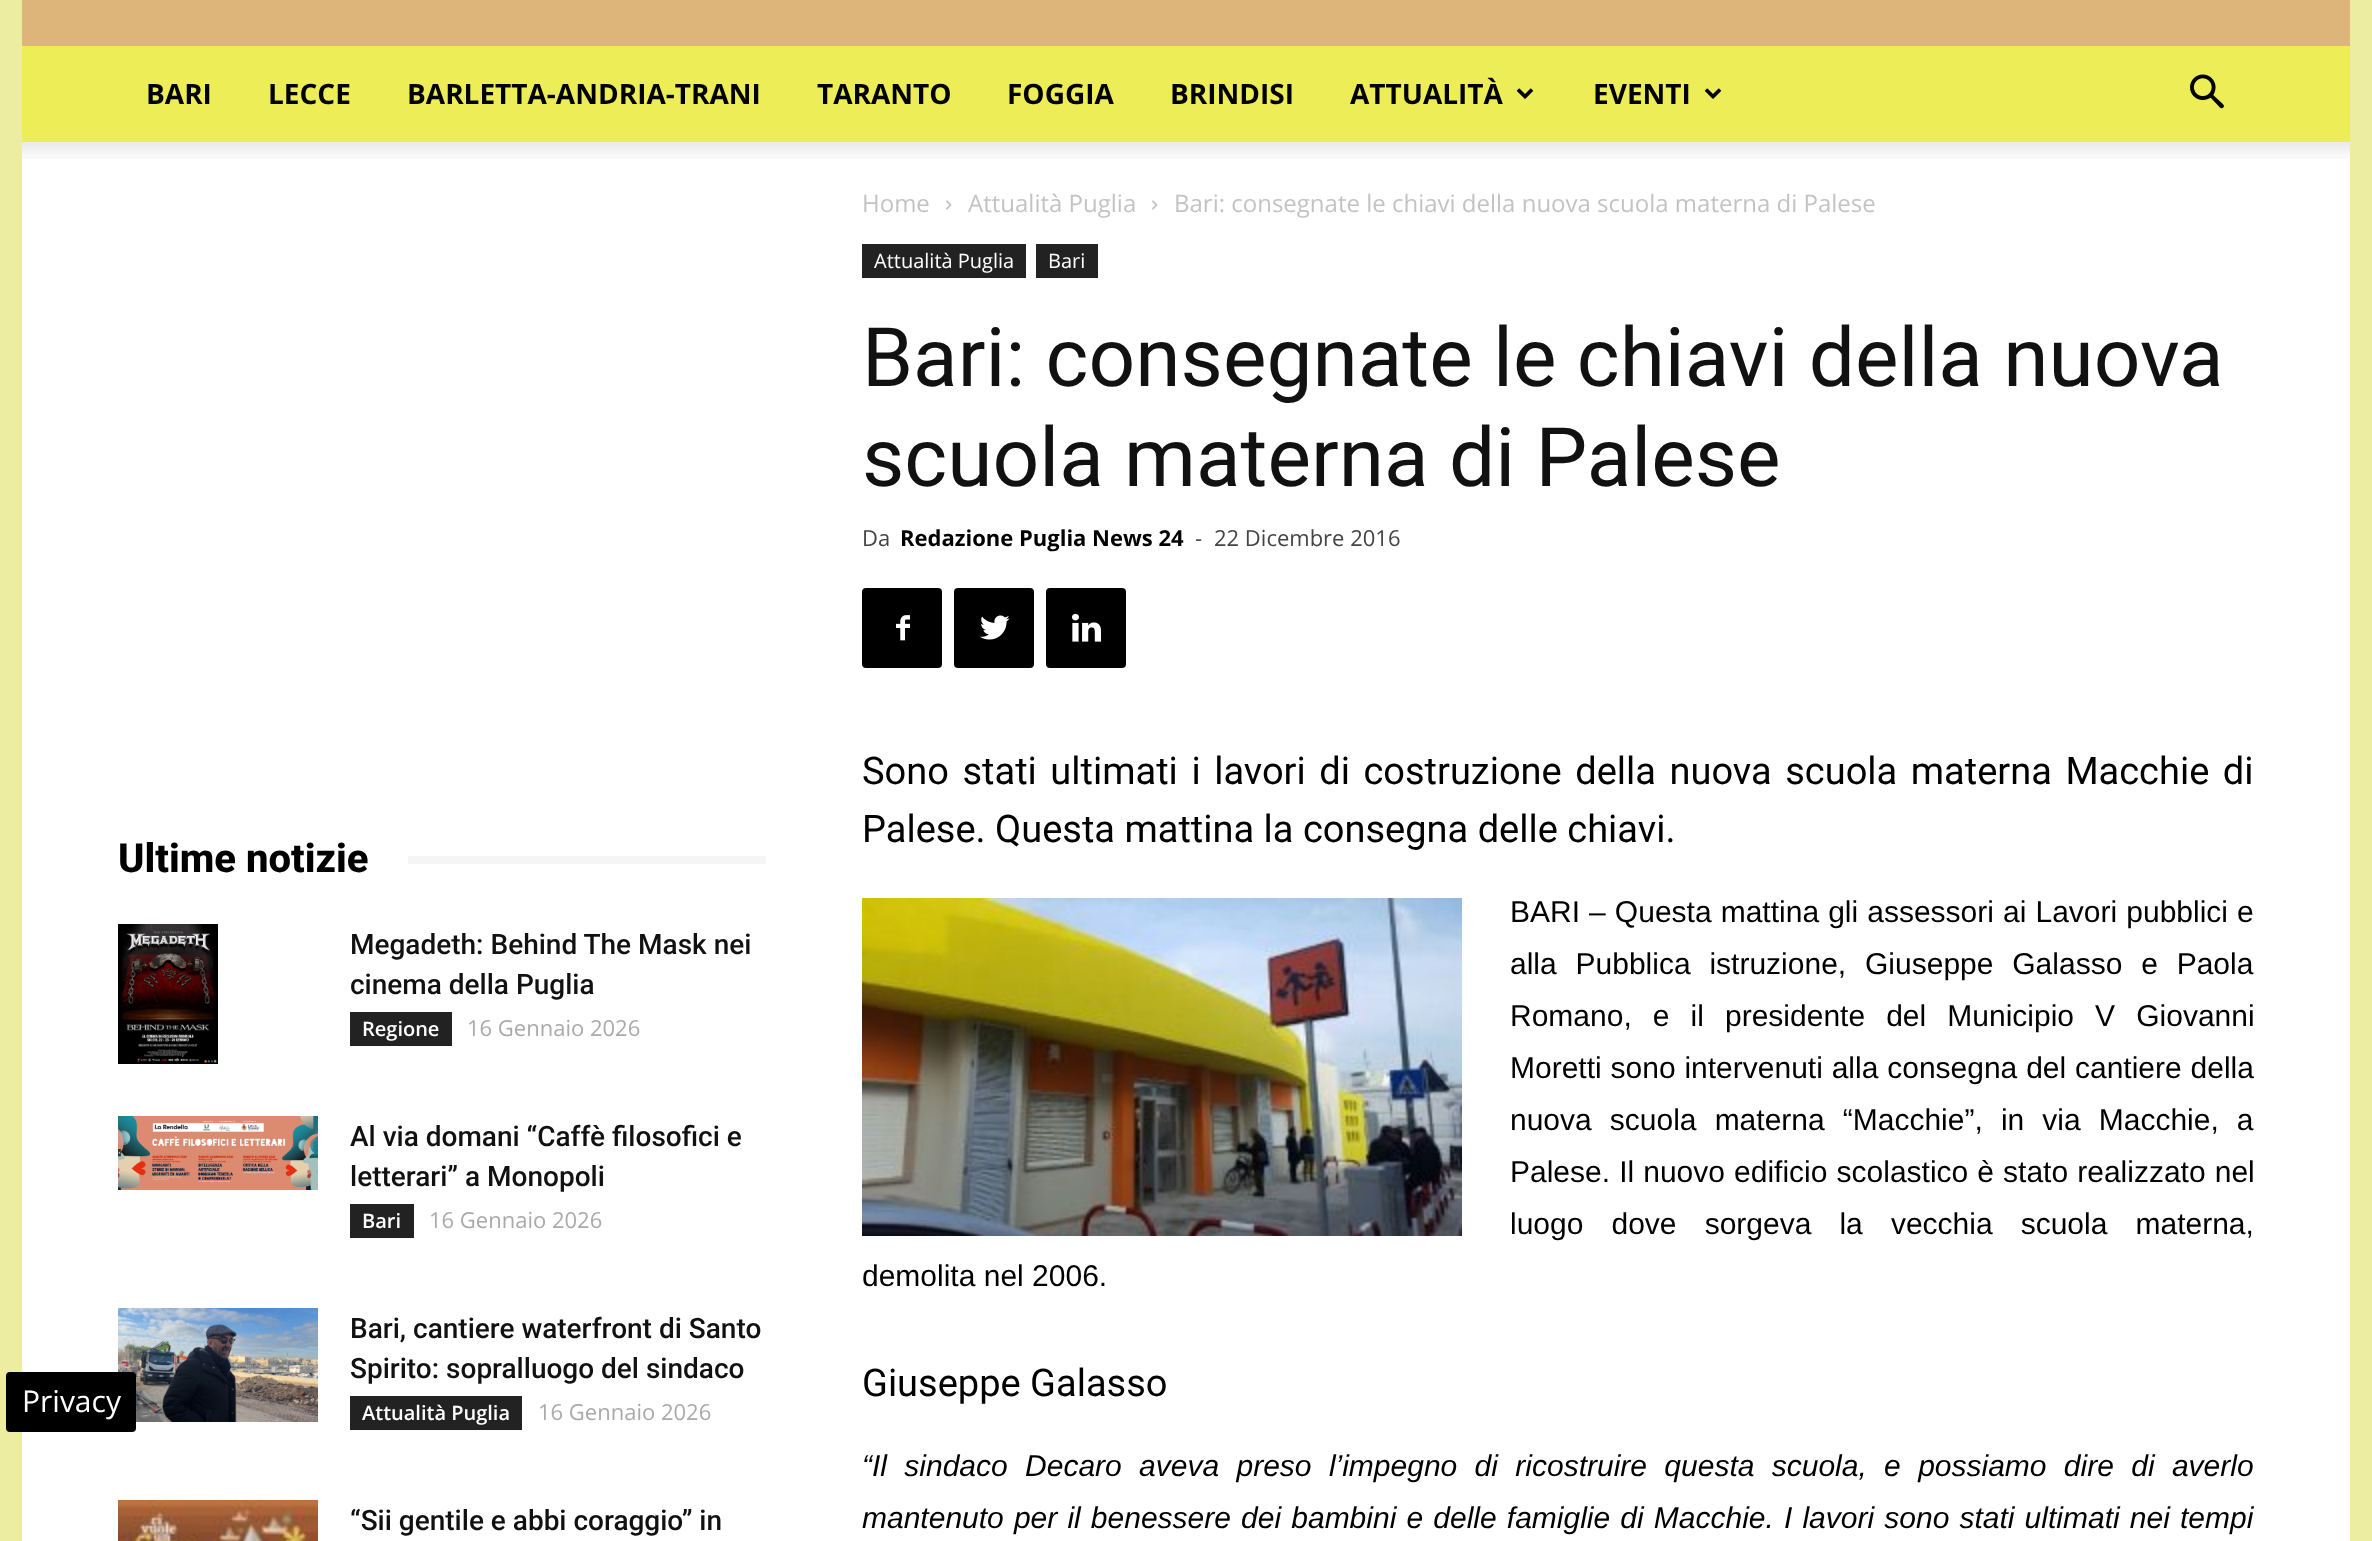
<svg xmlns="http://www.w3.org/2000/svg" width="2372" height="1541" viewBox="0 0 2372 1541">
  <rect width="100%" height="100%" fill="#ededa1"/>
  <rect x="22" y="0" width="2328" height="46" fill="#ddb57a"/>
  <rect x="22" y="46" width="2328" height="96" fill="#eded57"/>
  <text x="146" y="104" font-family="Open Sans" font-size="28" font-weight="bold" fill="#000000">BARI</text>
  <text x="268" y="104" font-family="Open Sans" font-size="28" font-weight="bold" fill="#000000">LECCE</text>
  <text x="407" y="104" font-family="Open Sans" font-size="28" font-weight="bold" fill="#000000">BARLETTA-ANDRIA-TRANI</text>
  <text x="817" y="104" font-family="Open Sans" font-size="28" font-weight="bold" fill="#000000">TARANTO</text>
  <text x="1007" y="104" font-family="Open Sans" font-size="28" font-weight="bold" fill="#000000">FOGGIA</text>
  <text x="1170" y="104" font-family="Open Sans" font-size="28" font-weight="bold" fill="#000000">BRINDISI</text>
  <text x="1350" y="104" font-family="Open Sans" font-size="28" font-weight="bold" fill="#000000">ATTUALITÀ</text>
  <image x="1516" y="88" width="18" height="11" href="img1.png"/>
  <text x="1593" y="104" font-family="Open Sans" font-size="28" font-weight="bold" fill="#000000">EVENTI</text>
  <image x="1704" y="88" width="18" height="11" href="img1.png"/>
  <image x="2190" y="74" width="34" height="35" href="img2.png"/>
  <rect x="22" y="142" width="2328" height="1399" fill="#ffffff"/>
  <image x="22" y="142" width="2328" height="17" href="img3.png"/>
  <image x="118" y="1308" width="200" height="114" href="img7.png"/>
  <rect x="6" y="1372" width="130" height="60" rx="4" fill="#000000"/>
  <text x="22" y="1412" font-family="Open Sans" font-size="30" fill="#ffffff">Privacy</text>
  <text x="862" y="212" font-family="Open Sans" font-size="24" fill="#c3c3c3">Home</text>
  <image x="946" y="200" width="6" height="10" href="img4.png"/>
  <text x="968" y="212" font-family="Open Sans" font-size="24" fill="#c3c3c3">Attualità Puglia</text>
  <image x="1152" y="200" width="6" height="10" href="img4.png"/>
  <text x="1174" y="212" font-family="Open Sans" font-size="24" fill="#c3c3c3">Bari: consegnate le chiavi della nuova scuola materna di Palese</text>
  <text x="118" y="872" font-family="Roboto" font-size="40" font-weight="800" fill="#000000">Ultime notizie</text>
  <rect x="408" y="856" width="358" height="8" fill="#f5f5f5"/>
  <image x="118" y="924" width="100" height="140" href="img5.png"/>
  <text x="350" y="954" font-family="Roboto" font-size="28" font-weight="500" fill="#111111">Megadeth: Behind The Mask nei</text>
  <text x="350" y="994" font-family="Roboto" font-size="28" font-weight="500" fill="#111111">cinema della Puglia</text>
  <rect x="350" y="1012" width="102" height="34" fill="#222222"/>
  <text x="362" y="1036" font-family="Open Sans" font-size="20" font-weight="600" fill="#ffffff">Regione</text>
  <text x="467" y="1036" font-family="Open Sans" font-size="22" fill="#aaaaaa">16 Gennaio 2026</text>
  <image x="118" y="1116" width="200" height="74" href="img6.png"/>
  <text x="350" y="1146" font-family="Roboto" font-size="28" font-weight="500" fill="#111111">Al via domani “Caffè filosofici e</text>
  <text x="350" y="1186" font-family="Roboto" font-size="28" font-weight="500" fill="#111111">letterari” a Monopoli</text>
  <rect x="350" y="1204" width="64" height="34" fill="#222222"/>
  <text x="362" y="1228" font-family="Open Sans" font-size="20" font-weight="600" fill="#ffffff">Bari</text>
  <text x="429" y="1228" font-family="Open Sans" font-size="22" fill="#aaaaaa">16 Gennaio 2026</text>
  <text x="350" y="1338" font-family="Roboto" font-size="28" font-weight="500" fill="#111111">Bari, cantiere waterfront di Santo</text>
  <text x="350" y="1378" font-family="Roboto" font-size="28" font-weight="500" fill="#111111">Spirito: sopralluogo del sindaco</text>
  <rect x="350" y="1396" width="172" height="34" fill="#222222"/>
  <text x="362" y="1420" font-family="Open Sans" font-size="20" font-weight="600" fill="#ffffff">Attualità Puglia</text>
  <text x="538" y="1420" font-family="Open Sans" font-size="22" fill="#aaaaaa">16 Gennaio 2026</text>
  <image x="118" y="1500" width="200" height="41" href="img8.png"/>
  <text x="350" y="1530" font-family="Roboto" font-size="28" font-weight="500" fill="#111111">“Sii gentile e abbi coraggio” in</text>
  <rect x="862" y="244" width="164" height="34" fill="#222222"/>
  <text x="874" y="268" font-family="Open Sans" font-size="20" fill="#ffffff">Attualità Puglia</text>
  <rect x="1036" y="244" width="62" height="34" fill="#222222"/>
  <text x="1048" y="268" font-family="Open Sans" font-size="20" fill="#ffffff">Bari</text>
  <text x="862" y="386" font-family="Roboto" font-size="82" fill="#111111">Bari: consegnate le chiavi della nuova</text>
  <text x="862" y="486" font-family="Roboto" font-size="82" fill="#111111">scuola materna di Palese</text>
  <text x="862" y="546" font-family="Open Sans" font-size="22" fill="#444444">Da</text>
  <text x="900" y="546" font-family="Open Sans" font-size="22" font-weight="bold" fill="#000000">Redazione Puglia News 24</text>
  <text x="1195" y="546" font-family="Open Sans" font-size="22" fill="#444444">-</text>
  <text x="1214" y="546" font-family="Open Sans" font-size="22" fill="#444444">22 Dicembre 2016</text>
  <rect x="862" y="588" width="80" height="80" rx="4" fill="#000000"/>
  <image x="896" y="615" width="14" height="26" href="img9.png"/>
  <rect x="954" y="588" width="80" height="80" rx="4" fill="#000000"/>
  <image x="980" y="615" width="30" height="25" href="img10.png"/>
  <rect x="1046" y="588" width="80" height="80" rx="4" fill="#000000"/>
  <image x="1072" y="613" width="29" height="29" href="img11.png"/>
  <text x="862" y="784" word-spacing="4.1" font-family="Roboto" font-size="38" fill="#000000">Sono stati ultimati i lavori di costruzione della nuova scuola materna Macchie di</text>
  <text x="862" y="842" font-family="Roboto" font-size="38" fill="#000000">Palese. Questa mattina la consegna delle chiavi.</text>
  <image x="862" y="898" width="600" height="338" href="img12.png"/>
  <text x="1510" y="922" word-spacing="0.75" font-family="Liberation Sans" font-size="30" fill="#000000">BARI – Questa mattina gli assessori ai Lavori pubblici e</text>
  <text x="1510" y="974" word-spacing="10.5" font-family="Liberation Sans" font-size="30" fill="#000000">alla Pubblica istruzione, Giuseppe Galasso e Paola</text>
  <text x="1510" y="1026" word-spacing="12.75" font-family="Liberation Sans" font-size="30" fill="#000000">Romano, e il presidente del Municipio V Giovanni</text>
  <text x="1510" y="1078" word-spacing="0.5" font-family="Liberation Sans" font-size="30" fill="#000000">Moretti sono intervenuti alla consegna del cantiere della</text>
  <text x="1510" y="1130" word-spacing="9.75" font-family="Liberation Sans" font-size="30" fill="#000000">nuova scuola materna “Macchie”, in via Macchie, a</text>
  <text x="1510" y="1182" word-spacing="0.75" font-family="Liberation Sans" font-size="30" fill="#000000">Palese. Il nuovo edificio scolastico è stato realizzato nel</text>
  <text x="1510" y="1234" word-spacing="19.75" font-family="Liberation Sans" font-size="30" fill="#000000">luogo dove sorgeva la vecchia scuola materna,</text>
  <text x="862" y="1286" font-family="Liberation Sans" font-size="30" fill="#000000">demolita nel 2006.</text>
  <text x="862" y="1396" font-family="Roboto" font-size="38" fill="#000000">Giuseppe Galasso</text>
  <text x="862" y="1476" word-spacing="9" font-family="Liberation Sans" font-size="30" font-style="italic" fill="#000000">“Il sindaco Decaro aveva preso l’impegno di ricostruire questa scuola, e possiamo dire di averlo</text>
  <text x="862" y="1528" word-spacing="1.8" font-family="Liberation Sans" font-size="30" font-style="italic" fill="#000000">mantenuto per il benessere dei bambini e delle famiglie di Macchie. I lavori sono stati ultimati nei tempi</text>
</svg>
